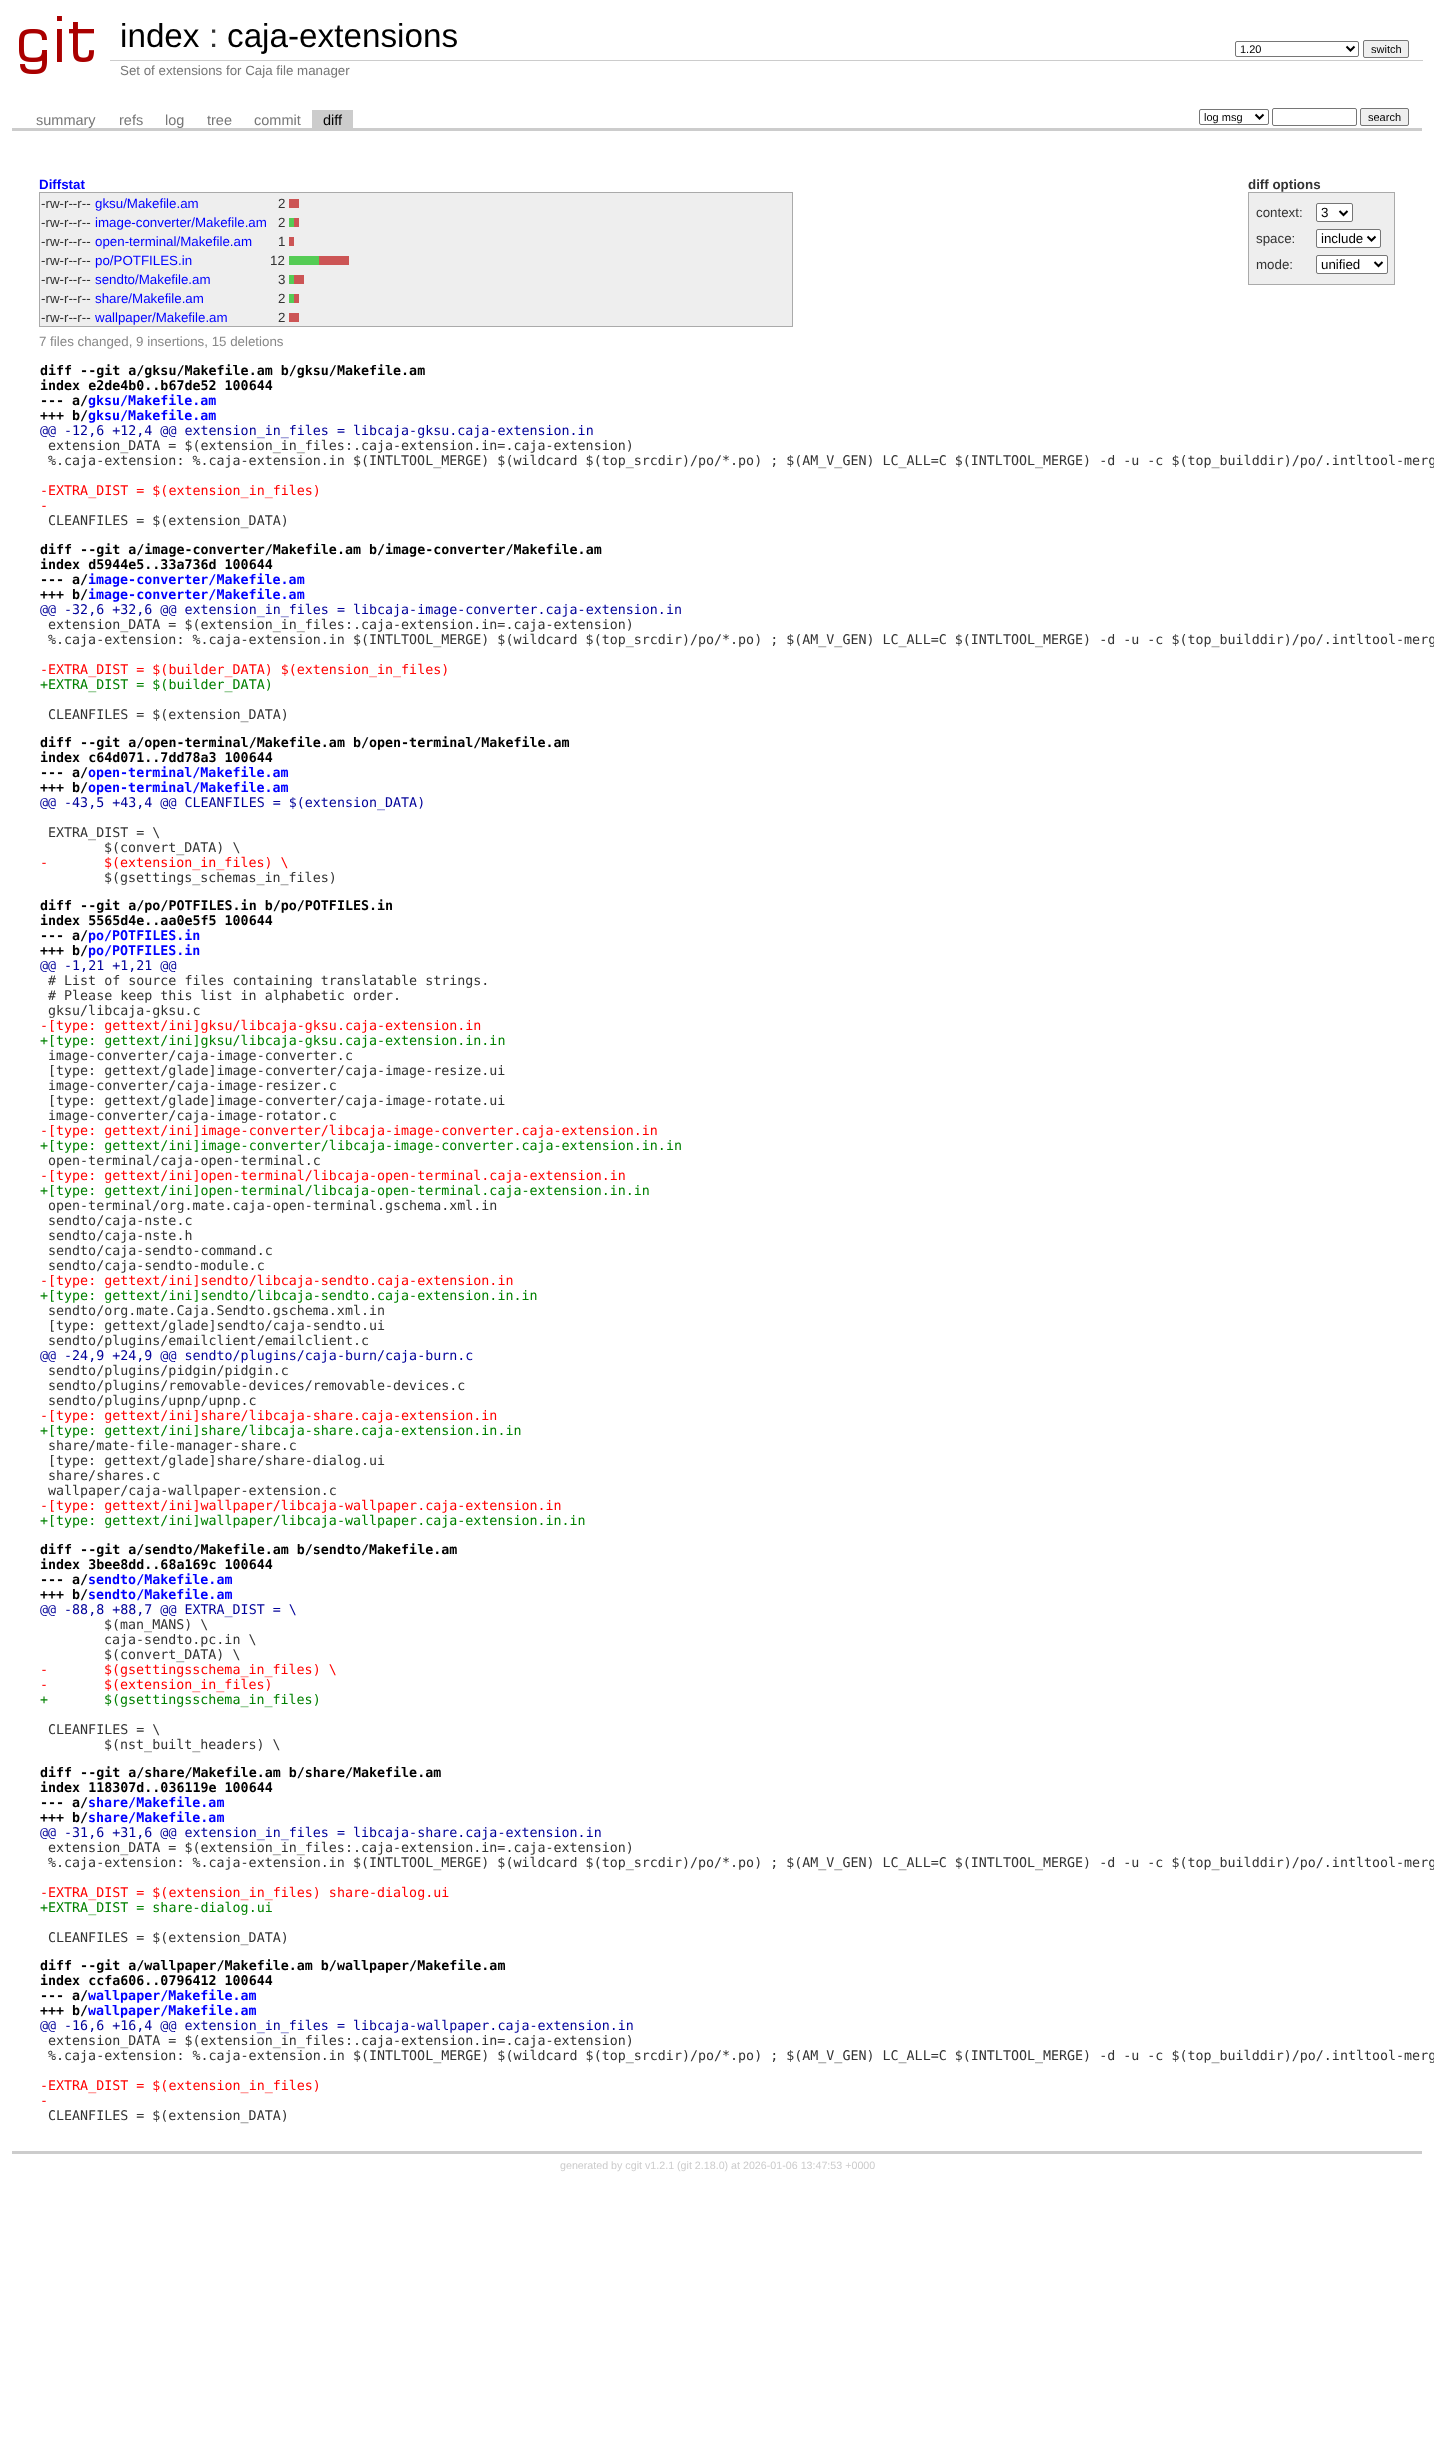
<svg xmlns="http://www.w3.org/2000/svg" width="1434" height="2457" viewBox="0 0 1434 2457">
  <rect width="100%" height="100%" fill="#ffffff"/>
  <image x="19" y="16" width="75" height="58" href="img1.png"/>
  <text x="120" y="47" font-family="Liberation Sans" font-size="33.25" fill="#000000">index</text>
  <text x="209" y="47" font-family="Liberation Sans" font-size="33.25" fill="#333333">:</text>
  <text x="227" y="47" font-family="Liberation Sans" font-size="33.25" fill="#000000">caja-extensions</text>
  <rect x="1235.5" y="41.5" width="123" height="15" rx="1.5" fill="none" stroke="#767676"/>
  <path d="M1346.5 46.5L1350.5 50.5L1354.5 46.5" fill="none" stroke="#000000" stroke-width="2"/>
  <text x="1240" y="53" font-family="Liberation Sans" font-size="11" fill="#000000">1.20</text>
  <rect x="1363.5" y="40.5" width="45" height="17" rx="1.5" fill="#efefef" stroke="#767676"/>
  <text x="1371" y="53" font-family="Liberation Sans" font-size="11" fill="#000000">switch</text>
  <rect x="110" y="60" width="1313" height="1" fill="#cccccc"/>
  <text x="120" y="75" font-family="Liberation Sans" font-size="13.33" fill="#777777">Set of extensions for Caja file manager</text>
  <rect x="12" y="128" width="1410" height="3" fill="#cccccc"/>
  <text x="36" y="125" font-family="Liberation Sans" font-size="14.5" fill="#777777">summary</text>
  <text x="119" y="125" font-family="Liberation Sans" font-size="14.5" fill="#777777">refs</text>
  <text x="165" y="125" font-family="Liberation Sans" font-size="14.5" fill="#777777">log</text>
  <text x="207" y="125" font-family="Liberation Sans" font-size="14.5" fill="#777777">tree</text>
  <text x="254" y="125" font-family="Liberation Sans" font-size="14.5" fill="#777777">commit</text>
  <rect x="312" y="110" width="41" height="18" fill="#cccccc"/>
  <text x="323" y="125" font-family="Liberation Sans" font-size="14.5" fill="#000000">diff</text>
  <rect x="1199.5" y="109.5" width="69" height="15" rx="1.5" fill="none" stroke="#767676"/>
  <path d="M1255.5 114.5L1259.5 118.5L1263.5 114.5" fill="none" stroke="#000000" stroke-width="2"/>
  <text x="1204" y="121" font-family="Liberation Sans" font-size="11" fill="#000000">log msg</text>
  <rect x="1272.5" y="108.5" width="84" height="17" rx="1.5" fill="none" stroke="#767676"/>
  <rect x="1360.5" y="108.5" width="48" height="17" rx="1.5" fill="#efefef" stroke="#767676"/>
  <text x="1368" y="121" font-family="Liberation Sans" font-size="11" fill="#000000">search</text>
  <rect x="12" y="2151" width="1410" height="3" fill="#cccccc"/>
  <text x="39" y="189" font-family="Liberation Sans" font-size="13.33" font-weight="bold" fill="#0000ff">Diffstat</text>
  <text x="1248" y="189" font-family="Liberation Sans" font-size="13.33" font-weight="bold" fill="#333333">diff options</text>
  <rect x="1249" y="193" width="145" height="91" fill="#eeeeee"/>
  <rect x="1248" y="192" width="147" height="1" fill="#aaaaaa"/>
  <rect x="1394" y="192" width="1" height="93" fill="#aaaaaa"/>
  <rect x="1248" y="284" width="147" height="1" fill="#aaaaaa"/>
  <rect x="1248" y="192" width="1" height="93" fill="#aaaaaa"/>
  <text x="1256" y="217" font-family="Liberation Sans" font-size="13.33" fill="#333333">context:</text>
  <rect x="1316.5" y="203.5" width="36" height="18" rx="1.5" fill="#ffffff" stroke="#767676"/>
  <path d="M1339.5 211L1343.5 215L1347.5 211" fill="none" stroke="#000000" stroke-width="2"/>
  <text x="1321" y="217" font-family="Liberation Sans" font-size="13.33" fill="#000000">3</text>
  <text x="1256" y="243" font-family="Liberation Sans" font-size="13.33" fill="#333333">space:</text>
  <rect x="1316.5" y="229.5" width="64" height="18" rx="1.5" fill="#ffffff" stroke="#767676"/>
  <path d="M1367.5 236.5L1371.5 240.5L1375.5 236.5" fill="none" stroke="#000000" stroke-width="2"/>
  <text x="1321" y="243" font-family="Liberation Sans" font-size="13.33" fill="#000000">include</text>
  <text x="1256" y="269" font-family="Liberation Sans" font-size="13.33" fill="#333333">mode:</text>
  <rect x="1316.5" y="255.5" width="71" height="18" rx="1.5" fill="#ffffff" stroke="#767676"/>
  <path d="M1374.5 262L1378.5 266L1382.5 262" fill="none" stroke="#000000" stroke-width="2"/>
  <text x="1321" y="269" font-family="Liberation Sans" font-size="13.33" fill="#000000">unified</text>
  <rect x="40" y="193" width="752" height="133" fill="#eeeeee"/>
  <rect x="39" y="192" width="754" height="1" fill="#aaaaaa"/>
  <rect x="792" y="192" width="1" height="135" fill="#aaaaaa"/>
  <rect x="39" y="326" width="754" height="1" fill="#aaaaaa"/>
  <rect x="39" y="192" width="1" height="135" fill="#aaaaaa"/>
  <text x="41" y="208" font-family="Liberation Sans" font-size="13.33" fill="#333333">-rw-r--r--</text>
  <text x="95" y="208" font-family="Liberation Sans" font-size="13.33" fill="#0000ff">gksu/Makefile.am</text>
  <text x="278" y="208" font-family="Liberation Sans" font-size="13.33" fill="#333333">2</text>
  <rect x="289" y="199" width="10" height="9" fill="#cc5555"/>
  <text x="41" y="227" font-family="Liberation Sans" font-size="13.33" fill="#333333">-rw-r--r--</text>
  <text x="95" y="227" font-family="Liberation Sans" font-size="13.33" fill="#0000ff">image-converter/Makefile.am</text>
  <text x="278" y="227" font-family="Liberation Sans" font-size="13.33" fill="#333333">2</text>
  <rect x="289" y="218" width="5" height="9" fill="#55cc55"/>
  <rect x="294" y="218" width="5" height="9" fill="#cc5555"/>
  <text x="41" y="246" font-family="Liberation Sans" font-size="13.33" fill="#333333">-rw-r--r--</text>
  <text x="95" y="246" font-family="Liberation Sans" font-size="13.33" fill="#0000ff">open-terminal/Makefile.am</text>
  <text x="278" y="246" font-family="Liberation Sans" font-size="13.33" fill="#333333">1</text>
  <rect x="289" y="237" width="5" height="9" fill="#cc5555"/>
  <text x="41" y="265" font-family="Liberation Sans" font-size="13.33" fill="#333333">-rw-r--r--</text>
  <text x="95" y="265" font-family="Liberation Sans" font-size="13.33" fill="#0000ff">po/POTFILES.in</text>
  <text x="270" y="265" font-family="Liberation Sans" font-size="13.33" fill="#333333">12</text>
  <rect x="289" y="256" width="30" height="9" fill="#55cc55"/>
  <rect x="319" y="256" width="30" height="9" fill="#cc5555"/>
  <text x="41" y="284" font-family="Liberation Sans" font-size="13.33" fill="#333333">-rw-r--r--</text>
  <text x="95" y="284" font-family="Liberation Sans" font-size="13.33" fill="#0000ff">sendto/Makefile.am</text>
  <text x="278" y="284" font-family="Liberation Sans" font-size="13.33" fill="#333333">3</text>
  <rect x="289" y="275" width="5" height="9" fill="#55cc55"/>
  <rect x="294" y="275" width="10" height="9" fill="#cc5555"/>
  <text x="41" y="303" font-family="Liberation Sans" font-size="13.33" fill="#333333">-rw-r--r--</text>
  <text x="95" y="303" font-family="Liberation Sans" font-size="13.33" fill="#0000ff">share/Makefile.am</text>
  <text x="278" y="303" font-family="Liberation Sans" font-size="13.33" fill="#333333">2</text>
  <rect x="289" y="294" width="5" height="9" fill="#55cc55"/>
  <rect x="294" y="294" width="5" height="9" fill="#cc5555"/>
  <text x="41" y="322" font-family="Liberation Sans" font-size="13.33" fill="#333333">-rw-r--r--</text>
  <text x="95" y="322" font-family="Liberation Sans" font-size="13.33" fill="#0000ff">wallpaper/Makefile.am</text>
  <text x="278" y="322" font-family="Liberation Sans" font-size="13.33" fill="#333333">2</text>
  <rect x="289" y="313" width="10" height="9" fill="#cc5555"/>
  <text x="39" y="346" font-family="Liberation Sans" font-size="13.33" fill="#888888">7 files changed, 9 insertions, 15 deletions</text>
  <text x="40" y="375" font-family="DejaVu Sans Mono" font-size="13.33" font-weight="bold" fill="#000000">diff --git a/gksu/Makefile.am b/gksu/Makefile.am</text>
  <text x="40" y="390" font-family="DejaVu Sans Mono" font-size="13.33" font-weight="bold" fill="#000000">index e2de4b0..b67de52 100644</text>
  <text x="40" y="405" font-family="DejaVu Sans Mono" font-size="13.33" font-weight="bold" fill="#000000">--- a/</text>
  <text x="88" y="405" font-family="DejaVu Sans Mono" font-size="13.33" font-weight="bold" fill="#0000ff">gksu/Makefile.am</text>
  <text x="40" y="420" font-family="DejaVu Sans Mono" font-size="13.33" font-weight="bold" fill="#000000">+++ b/</text>
  <text x="88" y="420" font-family="DejaVu Sans Mono" font-size="13.33" font-weight="bold" fill="#0000ff">gksu/Makefile.am</text>
  <text x="40" y="435" font-family="DejaVu Sans Mono" font-size="13.33" fill="#000099">@@ -12,6 +12,4 @@ extension_in_files = libcaja-gksu.caja-extension.in</text>
  <text x="48" y="450" font-family="DejaVu Sans Mono" font-size="13.33" fill="#333333">extension_DATA = $(extension_in_files:.caja-extension.in=.caja-extension)</text>
  <text x="48" y="465" font-family="DejaVu Sans Mono" font-size="13.33" fill="#333333">%.caja-extension: %.caja-extension.in $(INTLTOOL_MERGE) $(wildcard $(top_srcdir)/po/*.po) ; $(AM_V_GEN) LC_ALL=C $(INTLTOOL_MERGE) -d -u -c $(top_builddir)/po/.intltool-merg</text>
  <text x="40" y="495" font-family="DejaVu Sans Mono" font-size="13.33" fill="#ff0000">-EXTRA_DIST = $(extension_in_files)</text>
  <text x="40" y="510" font-family="DejaVu Sans Mono" font-size="13.33" fill="#ff0000">-</text>
  <text x="48" y="525" font-family="DejaVu Sans Mono" font-size="13.33" fill="#333333">CLEANFILES = $(extension_DATA)</text>
  <text x="40" y="554" font-family="DejaVu Sans Mono" font-size="13.33" font-weight="bold" fill="#000000">diff --git a/image-converter/Makefile.am b/image-converter/Makefile.am</text>
  <text x="40" y="569" font-family="DejaVu Sans Mono" font-size="13.33" font-weight="bold" fill="#000000">index d5944e5..33a736d 100644</text>
  <text x="40" y="584" font-family="DejaVu Sans Mono" font-size="13.33" font-weight="bold" fill="#000000">--- a/</text>
  <text x="88" y="584" font-family="DejaVu Sans Mono" font-size="13.33" font-weight="bold" fill="#0000ff">image-converter/Makefile.am</text>
  <text x="40" y="599" font-family="DejaVu Sans Mono" font-size="13.33" font-weight="bold" fill="#000000">+++ b/</text>
  <text x="88" y="599" font-family="DejaVu Sans Mono" font-size="13.33" font-weight="bold" fill="#0000ff">image-converter/Makefile.am</text>
  <text x="40" y="614" font-family="DejaVu Sans Mono" font-size="13.33" fill="#000099">@@ -32,6 +32,6 @@ extension_in_files = libcaja-image-converter.caja-extension.in</text>
  <text x="48" y="629" font-family="DejaVu Sans Mono" font-size="13.33" fill="#333333">extension_DATA = $(extension_in_files:.caja-extension.in=.caja-extension)</text>
  <text x="48" y="644" font-family="DejaVu Sans Mono" font-size="13.33" fill="#333333">%.caja-extension: %.caja-extension.in $(INTLTOOL_MERGE) $(wildcard $(top_srcdir)/po/*.po) ; $(AM_V_GEN) LC_ALL=C $(INTLTOOL_MERGE) -d -u -c $(top_builddir)/po/.intltool-merg</text>
  <text x="40" y="674" font-family="DejaVu Sans Mono" font-size="13.33" fill="#ff0000">-EXTRA_DIST = $(builder_DATA) $(extension_in_files)</text>
  <text x="40" y="689" font-family="DejaVu Sans Mono" font-size="13.33" fill="#008000">+EXTRA_DIST = $(builder_DATA)</text>
  <text x="48" y="719" font-family="DejaVu Sans Mono" font-size="13.33" fill="#333333">CLEANFILES = $(extension_DATA)</text>
  <text x="40" y="747" font-family="DejaVu Sans Mono" font-size="13.33" font-weight="bold" fill="#000000">diff --git a/open-terminal/Makefile.am b/open-terminal/Makefile.am</text>
  <text x="40" y="762" font-family="DejaVu Sans Mono" font-size="13.33" font-weight="bold" fill="#000000">index c64d071..7dd78a3 100644</text>
  <text x="40" y="777" font-family="DejaVu Sans Mono" font-size="13.33" font-weight="bold" fill="#000000">--- a/</text>
  <text x="88" y="777" font-family="DejaVu Sans Mono" font-size="13.33" font-weight="bold" fill="#0000ff">open-terminal/Makefile.am</text>
  <text x="40" y="792" font-family="DejaVu Sans Mono" font-size="13.33" font-weight="bold" fill="#000000">+++ b/</text>
  <text x="88" y="792" font-family="DejaVu Sans Mono" font-size="13.33" font-weight="bold" fill="#0000ff">open-terminal/Makefile.am</text>
  <text x="40" y="807" font-family="DejaVu Sans Mono" font-size="13.33" fill="#000099">@@ -43,5 +43,4 @@ CLEANFILES = $(extension_DATA)</text>
  <text x="48" y="837" font-family="DejaVu Sans Mono" font-size="13.33" fill="#333333">EXTRA_DIST = \</text>
  <text x="104" y="852" font-family="DejaVu Sans Mono" font-size="13.33" fill="#333333">$(convert_DATA) \</text>
  <text x="40" y="867" font-family="DejaVu Sans Mono" font-size="13.33" fill="#ff0000">-</text>
  <text x="104" y="867" font-family="DejaVu Sans Mono" font-size="13.33" fill="#ff0000">$(extension_in_files) \</text>
  <text x="104" y="882" font-family="DejaVu Sans Mono" font-size="13.33" fill="#333333">$(gsettings_schemas_in_files)</text>
  <text x="40" y="910" font-family="DejaVu Sans Mono" font-size="13.33" font-weight="bold" fill="#000000">diff --git a/po/POTFILES.in b/po/POTFILES.in</text>
  <text x="40" y="925" font-family="DejaVu Sans Mono" font-size="13.33" font-weight="bold" fill="#000000">index 5565d4e..aa0e5f5 100644</text>
  <text x="40" y="940" font-family="DejaVu Sans Mono" font-size="13.33" font-weight="bold" fill="#000000">--- a/</text>
  <text x="88" y="940" font-family="DejaVu Sans Mono" font-size="13.33" font-weight="bold" fill="#0000ff">po/POTFILES.in</text>
  <text x="40" y="955" font-family="DejaVu Sans Mono" font-size="13.33" font-weight="bold" fill="#000000">+++ b/</text>
  <text x="88" y="955" font-family="DejaVu Sans Mono" font-size="13.33" font-weight="bold" fill="#0000ff">po/POTFILES.in</text>
  <text x="40" y="970" font-family="DejaVu Sans Mono" font-size="13.33" fill="#000099">@@ -1,21 +1,21 @@</text>
  <text x="48" y="985" font-family="DejaVu Sans Mono" font-size="13.33" fill="#333333"># List of source files containing translatable strings.</text>
  <text x="48" y="1000" font-family="DejaVu Sans Mono" font-size="13.33" fill="#333333"># Please keep this list in alphabetic order.</text>
  <text x="48" y="1015" font-family="DejaVu Sans Mono" font-size="13.33" fill="#333333">gksu/libcaja-gksu.c</text>
  <text x="40" y="1030" font-family="DejaVu Sans Mono" font-size="13.33" fill="#ff0000">-[type: gettext/ini]gksu/libcaja-gksu.caja-extension.in</text>
  <text x="40" y="1045" font-family="DejaVu Sans Mono" font-size="13.33" fill="#008000">+[type: gettext/ini]gksu/libcaja-gksu.caja-extension.in.in</text>
  <text x="48" y="1060" font-family="DejaVu Sans Mono" font-size="13.33" fill="#333333">image-converter/caja-image-converter.c</text>
  <text x="48" y="1075" font-family="DejaVu Sans Mono" font-size="13.33" fill="#333333">[type: gettext/glade]image-converter/caja-image-resize.ui</text>
  <text x="48" y="1090" font-family="DejaVu Sans Mono" font-size="13.33" fill="#333333">image-converter/caja-image-resizer.c</text>
  <text x="48" y="1105" font-family="DejaVu Sans Mono" font-size="13.33" fill="#333333">[type: gettext/glade]image-converter/caja-image-rotate.ui</text>
  <text x="48" y="1120" font-family="DejaVu Sans Mono" font-size="13.33" fill="#333333">image-converter/caja-image-rotator.c</text>
  <text x="40" y="1135" font-family="DejaVu Sans Mono" font-size="13.33" fill="#ff0000">-[type: gettext/ini]image-converter/libcaja-image-converter.caja-extension.in</text>
  <text x="40" y="1150" font-family="DejaVu Sans Mono" font-size="13.33" fill="#008000">+[type: gettext/ini]image-converter/libcaja-image-converter.caja-extension.in.in</text>
  <text x="48" y="1165" font-family="DejaVu Sans Mono" font-size="13.33" fill="#333333">open-terminal/caja-open-terminal.c</text>
  <text x="40" y="1180" font-family="DejaVu Sans Mono" font-size="13.33" fill="#ff0000">-[type: gettext/ini]open-terminal/libcaja-open-terminal.caja-extension.in</text>
  <text x="40" y="1195" font-family="DejaVu Sans Mono" font-size="13.33" fill="#008000">+[type: gettext/ini]open-terminal/libcaja-open-terminal.caja-extension.in.in</text>
  <text x="48" y="1210" font-family="DejaVu Sans Mono" font-size="13.33" fill="#333333">open-terminal/org.mate.caja-open-terminal.gschema.xml.in</text>
  <text x="48" y="1225" font-family="DejaVu Sans Mono" font-size="13.33" fill="#333333">sendto/caja-nste.c</text>
  <text x="48" y="1240" font-family="DejaVu Sans Mono" font-size="13.33" fill="#333333">sendto/caja-nste.h</text>
  <text x="48" y="1255" font-family="DejaVu Sans Mono" font-size="13.33" fill="#333333">sendto/caja-sendto-command.c</text>
  <text x="48" y="1270" font-family="DejaVu Sans Mono" font-size="13.33" fill="#333333">sendto/caja-sendto-module.c</text>
  <text x="40" y="1285" font-family="DejaVu Sans Mono" font-size="13.33" fill="#ff0000">-[type: gettext/ini]sendto/libcaja-sendto.caja-extension.in</text>
  <text x="40" y="1300" font-family="DejaVu Sans Mono" font-size="13.33" fill="#008000">+[type: gettext/ini]sendto/libcaja-sendto.caja-extension.in.in</text>
  <text x="48" y="1315" font-family="DejaVu Sans Mono" font-size="13.33" fill="#333333">sendto/org.mate.Caja.Sendto.gschema.xml.in</text>
  <text x="48" y="1330" font-family="DejaVu Sans Mono" font-size="13.33" fill="#333333">[type: gettext/glade]sendto/caja-sendto.ui</text>
  <text x="48" y="1345" font-family="DejaVu Sans Mono" font-size="13.33" fill="#333333">sendto/plugins/emailclient/emailclient.c</text>
  <text x="40" y="1360" font-family="DejaVu Sans Mono" font-size="13.33" fill="#000099">@@ -24,9 +24,9 @@ sendto/plugins/caja-burn/caja-burn.c</text>
  <text x="48" y="1375" font-family="DejaVu Sans Mono" font-size="13.33" fill="#333333">sendto/plugins/pidgin/pidgin.c</text>
  <text x="48" y="1390" font-family="DejaVu Sans Mono" font-size="13.33" fill="#333333">sendto/plugins/removable-devices/removable-devices.c</text>
  <text x="48" y="1405" font-family="DejaVu Sans Mono" font-size="13.33" fill="#333333">sendto/plugins/upnp/upnp.c</text>
  <text x="40" y="1420" font-family="DejaVu Sans Mono" font-size="13.33" fill="#ff0000">-[type: gettext/ini]share/libcaja-share.caja-extension.in</text>
  <text x="40" y="1435" font-family="DejaVu Sans Mono" font-size="13.33" fill="#008000">+[type: gettext/ini]share/libcaja-share.caja-extension.in.in</text>
  <text x="48" y="1450" font-family="DejaVu Sans Mono" font-size="13.33" fill="#333333">share/mate-file-manager-share.c</text>
  <text x="48" y="1465" font-family="DejaVu Sans Mono" font-size="13.33" fill="#333333">[type: gettext/glade]share/share-dialog.ui</text>
  <text x="48" y="1480" font-family="DejaVu Sans Mono" font-size="13.33" fill="#333333">share/shares.c</text>
  <text x="48" y="1495" font-family="DejaVu Sans Mono" font-size="13.33" fill="#333333">wallpaper/caja-wallpaper-extension.c</text>
  <text x="40" y="1510" font-family="DejaVu Sans Mono" font-size="13.33" fill="#ff0000">-[type: gettext/ini]wallpaper/libcaja-wallpaper.caja-extension.in</text>
  <text x="40" y="1525" font-family="DejaVu Sans Mono" font-size="13.33" fill="#008000">+[type: gettext/ini]wallpaper/libcaja-wallpaper.caja-extension.in.in</text>
  <text x="40" y="1554" font-family="DejaVu Sans Mono" font-size="13.33" font-weight="bold" fill="#000000">diff --git a/sendto/Makefile.am b/sendto/Makefile.am</text>
  <text x="40" y="1569" font-family="DejaVu Sans Mono" font-size="13.33" font-weight="bold" fill="#000000">index 3bee8dd..68a169c 100644</text>
  <text x="40" y="1584" font-family="DejaVu Sans Mono" font-size="13.33" font-weight="bold" fill="#000000">--- a/</text>
  <text x="88" y="1584" font-family="DejaVu Sans Mono" font-size="13.33" font-weight="bold" fill="#0000ff">sendto/Makefile.am</text>
  <text x="40" y="1599" font-family="DejaVu Sans Mono" font-size="13.33" font-weight="bold" fill="#000000">+++ b/</text>
  <text x="88" y="1599" font-family="DejaVu Sans Mono" font-size="13.33" font-weight="bold" fill="#0000ff">sendto/Makefile.am</text>
  <text x="40" y="1614" font-family="DejaVu Sans Mono" font-size="13.33" fill="#000099">@@ -88,8 +88,7 @@ EXTRA_DIST = \</text>
  <text x="104" y="1629" font-family="DejaVu Sans Mono" font-size="13.33" fill="#333333">$(man_MANS) \</text>
  <text x="104" y="1644" font-family="DejaVu Sans Mono" font-size="13.33" fill="#333333">caja-sendto.pc.in \</text>
  <text x="104" y="1659" font-family="DejaVu Sans Mono" font-size="13.33" fill="#333333">$(convert_DATA) \</text>
  <text x="40" y="1674" font-family="DejaVu Sans Mono" font-size="13.33" fill="#ff0000">-</text>
  <text x="104" y="1674" font-family="DejaVu Sans Mono" font-size="13.33" fill="#ff0000">$(gsettingsschema_in_files) \</text>
  <text x="40" y="1689" font-family="DejaVu Sans Mono" font-size="13.33" fill="#ff0000">-</text>
  <text x="104" y="1689" font-family="DejaVu Sans Mono" font-size="13.33" fill="#ff0000">$(extension_in_files)</text>
  <text x="40" y="1704" font-family="DejaVu Sans Mono" font-size="13.33" fill="#008000">+</text>
  <text x="104" y="1704" font-family="DejaVu Sans Mono" font-size="13.33" fill="#008000">$(gsettingsschema_in_files)</text>
  <text x="48" y="1734" font-family="DejaVu Sans Mono" font-size="13.33" fill="#333333">CLEANFILES = \</text>
  <text x="104" y="1749" font-family="DejaVu Sans Mono" font-size="13.33" fill="#333333">$(nst_built_headers) \</text>
  <text x="40" y="1777" font-family="DejaVu Sans Mono" font-size="13.33" font-weight="bold" fill="#000000">diff --git a/share/Makefile.am b/share/Makefile.am</text>
  <text x="40" y="1792" font-family="DejaVu Sans Mono" font-size="13.33" font-weight="bold" fill="#000000">index 118307d..036119e 100644</text>
  <text x="40" y="1807" font-family="DejaVu Sans Mono" font-size="13.33" font-weight="bold" fill="#000000">--- a/</text>
  <text x="88" y="1807" font-family="DejaVu Sans Mono" font-size="13.33" font-weight="bold" fill="#0000ff">share/Makefile.am</text>
  <text x="40" y="1822" font-family="DejaVu Sans Mono" font-size="13.33" font-weight="bold" fill="#000000">+++ b/</text>
  <text x="88" y="1822" font-family="DejaVu Sans Mono" font-size="13.33" font-weight="bold" fill="#0000ff">share/Makefile.am</text>
  <text x="40" y="1837" font-family="DejaVu Sans Mono" font-size="13.33" fill="#000099">@@ -31,6 +31,6 @@ extension_in_files = libcaja-share.caja-extension.in</text>
  <text x="48" y="1852" font-family="DejaVu Sans Mono" font-size="13.33" fill="#333333">extension_DATA = $(extension_in_files:.caja-extension.in=.caja-extension)</text>
  <text x="48" y="1867" font-family="DejaVu Sans Mono" font-size="13.33" fill="#333333">%.caja-extension: %.caja-extension.in $(INTLTOOL_MERGE) $(wildcard $(top_srcdir)/po/*.po) ; $(AM_V_GEN) LC_ALL=C $(INTLTOOL_MERGE) -d -u -c $(top_builddir)/po/.intltool-merg</text>
  <text x="40" y="1897" font-family="DejaVu Sans Mono" font-size="13.33" fill="#ff0000">-EXTRA_DIST = $(extension_in_files) share-dialog.ui</text>
  <text x="40" y="1912" font-family="DejaVu Sans Mono" font-size="13.33" fill="#008000">+EXTRA_DIST = share-dialog.ui</text>
  <text x="48" y="1942" font-family="DejaVu Sans Mono" font-size="13.33" fill="#333333">CLEANFILES = $(extension_DATA)</text>
  <text x="40" y="1970" font-family="DejaVu Sans Mono" font-size="13.33" font-weight="bold" fill="#000000">diff --git a/wallpaper/Makefile.am b/wallpaper/Makefile.am</text>
  <text x="40" y="1985" font-family="DejaVu Sans Mono" font-size="13.33" font-weight="bold" fill="#000000">index ccfa606..0796412 100644</text>
  <text x="40" y="2000" font-family="DejaVu Sans Mono" font-size="13.33" font-weight="bold" fill="#000000">--- a/</text>
  <text x="88" y="2000" font-family="DejaVu Sans Mono" font-size="13.33" font-weight="bold" fill="#0000ff">wallpaper/Makefile.am</text>
  <text x="40" y="2015" font-family="DejaVu Sans Mono" font-size="13.33" font-weight="bold" fill="#000000">+++ b/</text>
  <text x="88" y="2015" font-family="DejaVu Sans Mono" font-size="13.33" font-weight="bold" fill="#0000ff">wallpaper/Makefile.am</text>
  <text x="40" y="2030" font-family="DejaVu Sans Mono" font-size="13.33" fill="#000099">@@ -16,6 +16,4 @@ extension_in_files = libcaja-wallpaper.caja-extension.in</text>
  <text x="48" y="2045" font-family="DejaVu Sans Mono" font-size="13.33" fill="#333333">extension_DATA = $(extension_in_files:.caja-extension.in=.caja-extension)</text>
  <text x="48" y="2060" font-family="DejaVu Sans Mono" font-size="13.33" fill="#333333">%.caja-extension: %.caja-extension.in $(INTLTOOL_MERGE) $(wildcard $(top_srcdir)/po/*.po) ; $(AM_V_GEN) LC_ALL=C $(INTLTOOL_MERGE) -d -u -c $(top_builddir)/po/.intltool-merg</text>
  <text x="40" y="2090" font-family="DejaVu Sans Mono" font-size="13.33" fill="#ff0000">-EXTRA_DIST = $(extension_in_files)</text>
  <text x="40" y="2105" font-family="DejaVu Sans Mono" font-size="13.33" fill="#ff0000">-</text>
  <text x="48" y="2120" font-family="DejaVu Sans Mono" font-size="13.33" fill="#333333">CLEANFILES = $(extension_DATA)</text>
  <text x="560" y="2169" font-family="Liberation Sans" font-size="10.7" fill="#cccccc">generated by cgit v1.2.1 (git 2.18.0) at 2026-01-06 13:47:53 +0000</text>
</svg>
